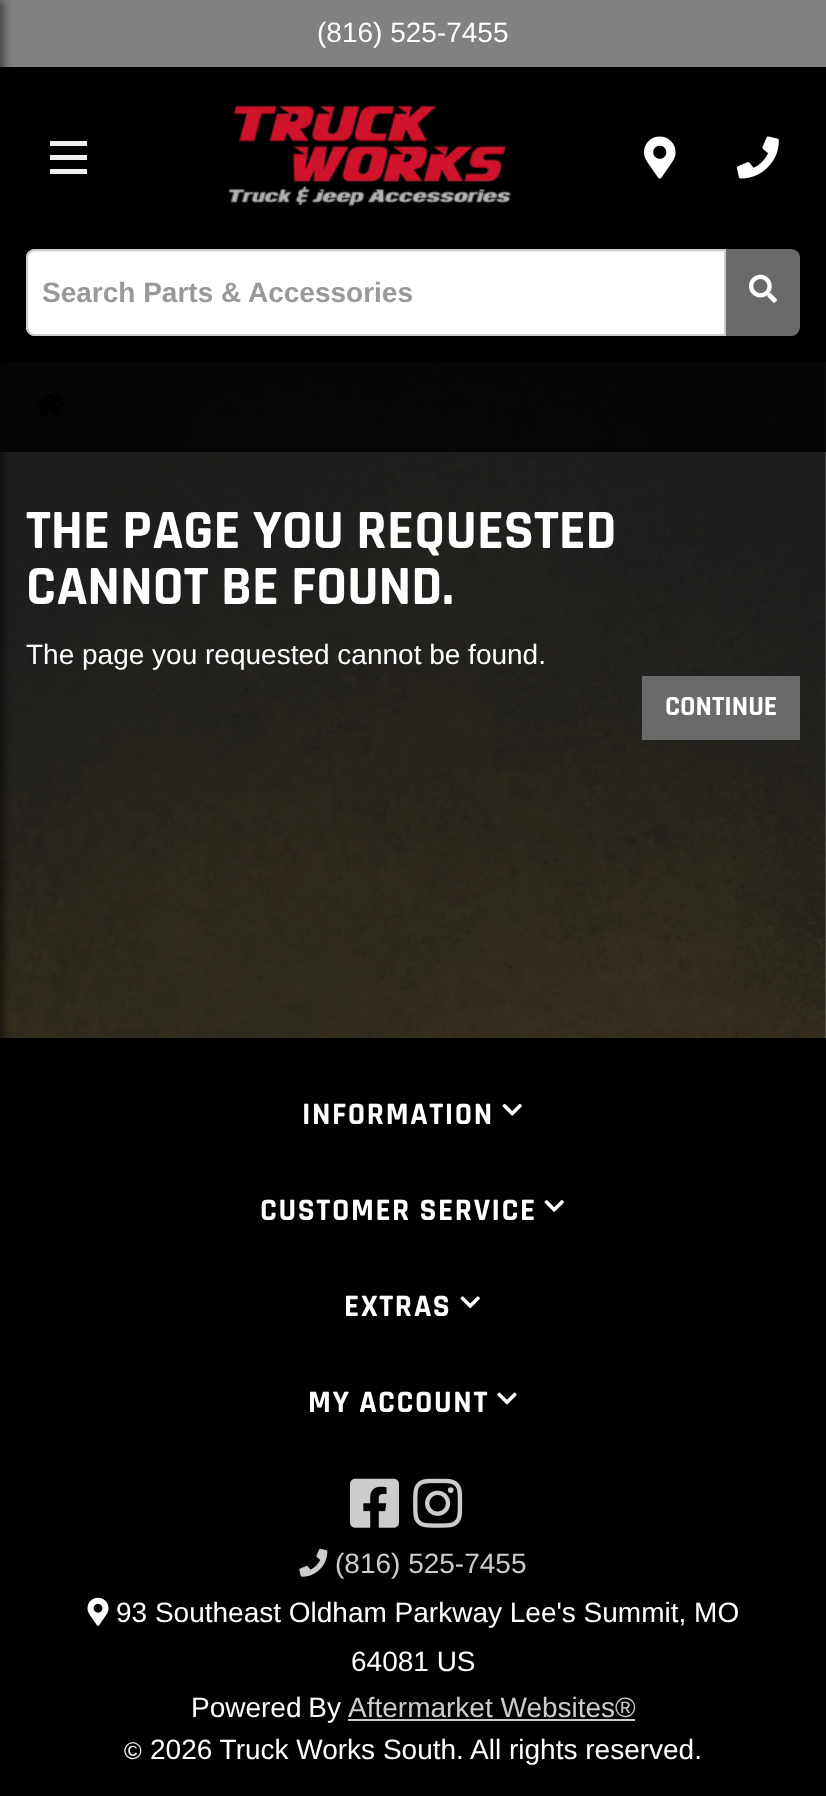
<svg xmlns="http://www.w3.org/2000/svg" width="826" height="1796" viewBox="0 0 826 1796">
  <defs>
    <filter id="blur1" x="-50%" y="-200%" width="200%" height="500%"><feGaussianBlur stdDeviation="4.5"/></filter>
  </defs>
  <rect width="100%" height="100%" fill="#ffffff"/>
  <image x="0" y="362" width="826" height="676" href="img1.png"/>
  <rect x="0" y="0" width="826" height="67" fill="#818181"/>
  <rect x="0" y="67" width="826" height="295" fill="#000000"/>
  <rect x="0" y="362" width="826" height="90" fill="#000000" fill-opacity="0.8"/>
  <rect x="0" y="1038" width="826" height="758" fill="#000000"/>
  <rect x="-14" y="0" width="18" height="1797" fill="#000000" fill-opacity="0.5" filter="url(#blur1)"/>
  <text x="317" y="42" font-family="Arimo" font-size="28" fill="#ffffff">(816) 525-7455</text>
  <rect x="50" y="141" width="37" height="5" fill="#f0f0f0"/>
  <rect x="50" y="155" width="37" height="5" fill="#f0f0f0"/>
  <rect x="50" y="169" width="37" height="5" fill="#f0f0f0"/>
  <image x="228" y="105" width="283" height="102" href="img2.png"/>
  <image x="644" y="136" width="32" height="43" href="img3.png"/>
  <image x="736" y="136" width="43" height="43" href="img4.png"/>
  <path d="M35 249H726V336H35C30 336 26 332 26 327V258C26 253 30 249 35 249Z" fill="#ffffff"/>
  <path d="M35 252H724V334H725V250H35C30 250 28 255 28 259C28 255 31 252 35 252Z" fill="#ececec"/>
  <path d="M35 250H725V335H35C30.5 335 27 331.5 27 327V258C27 253.5 30.5 250 35 250Z" fill="none" stroke="#cccccc" stroke-width="2"/>
  <text x="42" y="302" font-family="Arimo" font-size="28" font-weight="bold" fill="#999999">Search Parts &amp; Accessories</text>
  <path d="M727 250H791C795.5 250 799 253.5 799 258V327C799 331.5 795.5 335 791 335H727Z" fill="#6a6a6a" stroke="#6a6a6a" stroke-width="2"/>
  <image x="749" y="274" width="28" height="29" href="img5.png"/>
  <image x="35" y="394" width="29" height="22" href="img6.png"/>
  <text x="26" y="548" font-family="Rajdhani" font-size="56" font-weight="bold" fill="#ffffff">THE PAGE YOU REQUESTED</text>
  <text x="26" y="604" font-family="Rajdhani" font-size="56" font-weight="bold" fill="#ffffff">CANNOT BE FOUND.</text>
  <text x="26" y="664" font-family="Arimo" font-size="28" fill="#ffffff">The page you requested cannot be found.</text>
  <rect x="642" y="676" width="158" height="64" fill="#6a6a6a"/>
  <text x="665" y="715" font-family="Rajdhani" font-size="28" font-weight="bold" fill="#ffffff">CONTINUE</text>
  <text x="302" y="1124" font-family="Rajdhani" font-size="31.5" font-weight="bold" letter-spacing="1.6" fill="#ffffff">INFORMATION</text>
  <image x="502" y="1103" width="20" height="13" href="img7.png"/>
  <text x="260" y="1220" font-family="Rajdhani" font-size="31.5" font-weight="bold" letter-spacing="1.6" fill="#ffffff">CUSTOMER SERVICE</text>
  <image x="544" y="1200" width="20" height="12" href="img8.png"/>
  <text x="344" y="1316" font-family="Rajdhani" font-size="31.5" font-weight="bold" letter-spacing="1.6" fill="#ffffff">EXTRAS</text>
  <image x="460" y="1296" width="20" height="13" href="img9.png"/>
  <text x="308" y="1412" font-family="Rajdhani" font-size="31.5" font-weight="bold" letter-spacing="1.6" fill="#ffffff">MY ACCOUNT</text>
  <image x="497" y="1392" width="20" height="13" href="img10.png"/>
  <image x="350" y="1478" width="49" height="50" href="img11.png"/>
  <image x="413" y="1478" width="50" height="50" href="img12.png"/>
  <image x="299" y="1548" width="29" height="29" href="img13.png"/>
  <text x="335" y="1573" font-family="Arimo" font-size="28" fill="#cccccc">(816) 525-7455</text>
  <image x="87" y="1597" width="22" height="29" href="img14.png"/>
  <text x="116" y="1622" font-family="Arimo" font-size="28" fill="#ffffff">93 Southeast Oldham Parkway Lee's Summit, MO</text>
  <text x="351" y="1671" font-family="Arimo" font-size="28" fill="#ffffff">64081 US</text>
  <text x="191" y="1717" word-spacing="-1" font-family="Arimo" font-size="28" fill="#ffffff">Powered By</text>
  <text x="348" y="1717" font-family="Arimo" font-size="28" fill="#cccccc">Aftermarket Websites®</text>
  <rect x="348" y="1719" width="287" height="2" fill="#cccccc"/>
  <text x="124" y="1759" font-family="Arimo" font-size="24" fill="#ffffff">©</text>
  <text x="150" y="1759" font-family="Arimo" font-size="28" fill="#ffffff">2026 Truck Works South. All rights reserved.</text>
</svg>
